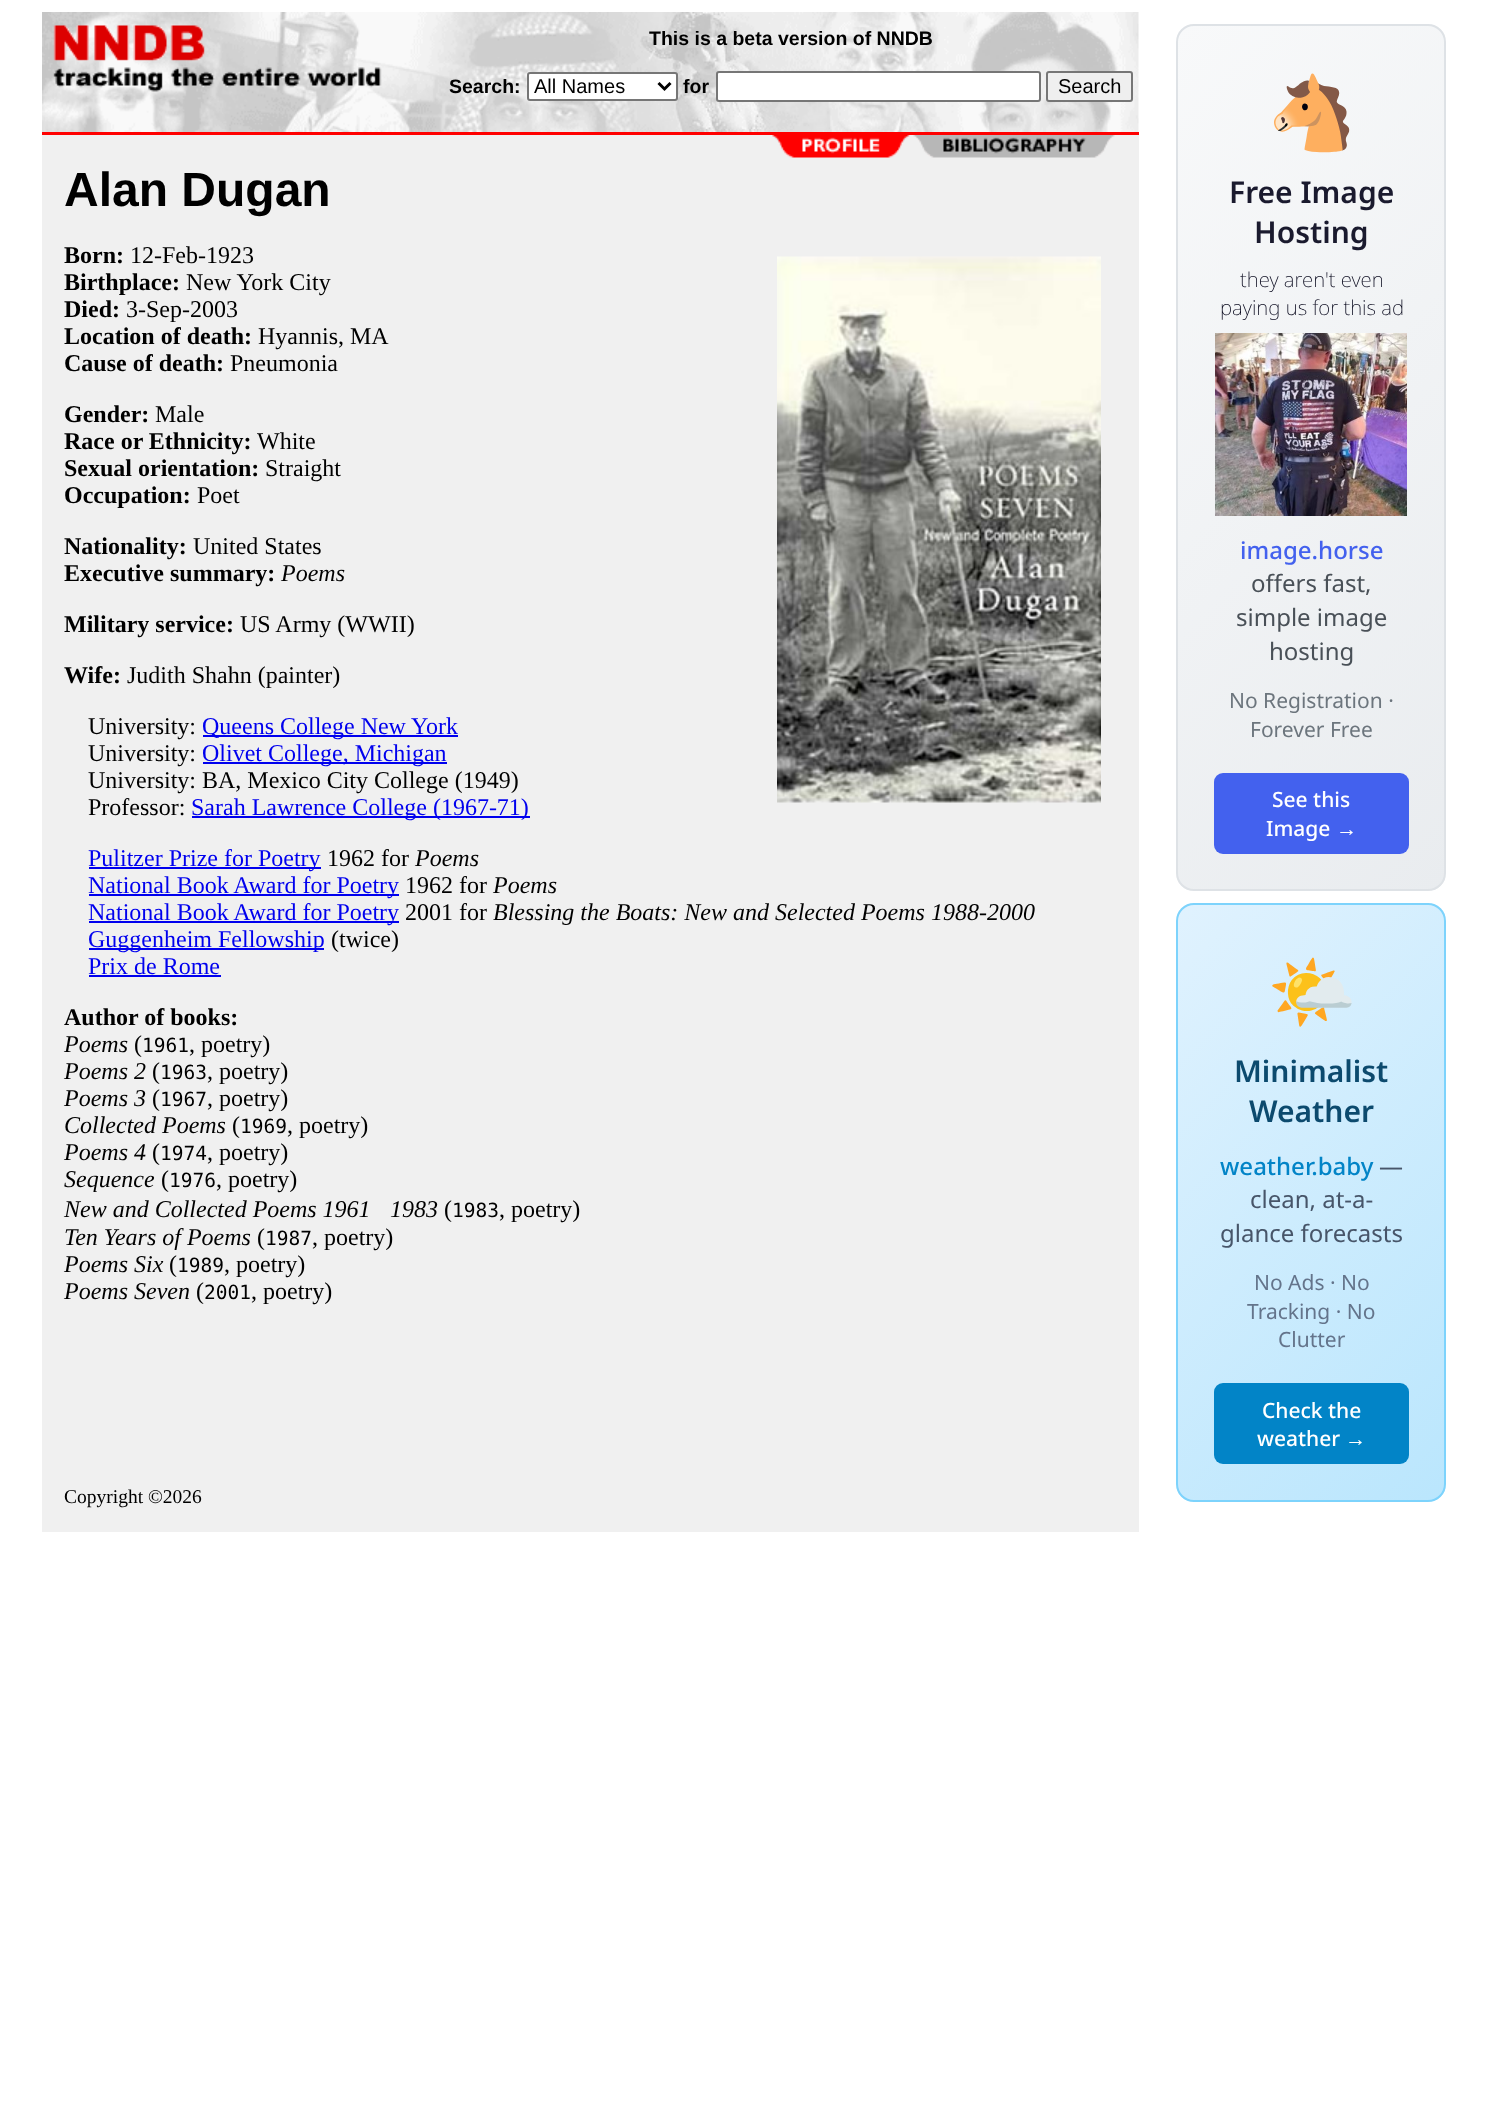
<svg xmlns="http://www.w3.org/2000/svg" width="1488" height="2121" viewBox="0 0 1488 2121">
  <defs>
    <clipPath id="clip1"><rect x="1176" y="24" width="270" height="867" rx="18"/></clipPath>
    <linearGradient id="g1" gradientUnits="userSpaceOnUse" x1="1028" y1="175" x2="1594" y2="740"><stop offset="0" stop-color="#f8f9fa"/><stop offset="1" stop-color="#e9ecef"/></linearGradient>
    <clipPath id="clip2"><rect x="1176" y="903" width="270" height="599" rx="18"/></clipPath>
    <linearGradient id="g2" gradientUnits="userSpaceOnUse" x1="1095" y1="987" x2="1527" y2="1418"><stop offset="0" stop-color="#e0f2fe"/><stop offset="1" stop-color="#bae6fd"/></linearGradient>
  </defs>
  <rect width="100%" height="100%" fill="#ffffff"/>
  <image x="42" y="12" width="1097" height="120" href="img1.png"/>
  <image x="53" y="25" width="329" height="67" href="img2.png"/>
  <text x="649" y="45" font-family="Liberation Sans" font-size="19.5" font-weight="bold" fill="#000000">This is a beta version of NNDB</text>
  <text x="449" y="93" font-family="Liberation Sans" font-size="19.5" font-weight="bold" fill="#000000">Search:</text>
  <rect x="528" y="73" width="149" height="27" rx="2" fill="#ffffff" stroke="#767676" stroke-width="2"/>
  <path d="M658.5 83L664.5 89L670.5 83" fill="none" stroke="#000000" stroke-width="3"/>
  <text x="534" y="93" font-family="Liberation Sans" font-size="20" fill="#000000">All Names</text>
  <text x="683" y="93" font-family="Liberation Sans" font-size="19.5" font-weight="bold" fill="#000000">for</text>
  <rect x="717" y="72" width="323" height="29" rx="2" fill="#ffffff" stroke="#767676" stroke-width="2"/>
  <rect x="1047" y="72" width="85" height="29" rx="2" fill="#efefef" stroke="#767676" stroke-width="2"/>
  <text x="1058" y="93" font-family="Liberation Sans" font-size="20" fill="#000000">Search</text>
  <rect x="42" y="132" width="1097" height="3" fill="#ff0000"/>
  <rect x="42" y="135" width="1097" height="1397" fill="#f0f0f0"/>
  <image x="772" y="135" width="343" height="23" href="img3.png"/>
  <text x="64" y="206" font-family="Liberation Sans" font-size="48" font-weight="bold" fill="#000000">Alan Dugan</text>
  <text x="64" y="263" font-family="Liberation Serif" font-size="24" font-weight="bold" fill="#000000">Born:</text>
  <text x="130" y="263" font-family="Liberation Serif" font-size="24" fill="#000000">12-Feb-1923</text>
  <image x="777" y="256" width="324" height="547" href="img4.png"/>
  <text x="64" y="290" font-family="Liberation Serif" font-size="24" font-weight="bold" fill="#000000">Birthplace:</text>
  <text x="186" y="290" font-family="Liberation Serif" font-size="24" fill="#000000">New York City</text>
  <text x="64" y="317" font-family="Liberation Serif" font-size="24" font-weight="bold" fill="#000000">Died:</text>
  <text x="126" y="317" font-family="Liberation Serif" font-size="24" fill="#000000">3-Sep-2003</text>
  <text x="64" y="344" font-family="Liberation Serif" font-size="24" font-weight="bold" fill="#000000">Location of death:</text>
  <text x="258" y="344" font-family="Liberation Serif" font-size="24" fill="#000000">Hyannis, MA</text>
  <text x="64" y="371" font-family="Liberation Serif" font-size="24" font-weight="bold" fill="#000000">Cause of death:</text>
  <text x="230" y="371" font-family="Liberation Serif" font-size="24" fill="#000000">Pneumonia</text>
  <text x="64" y="422" font-family="Liberation Serif" font-size="24" font-weight="bold" fill="#000000">Gender:</text>
  <text x="155" y="422" font-family="Liberation Serif" font-size="24" fill="#000000">Male</text>
  <text x="64" y="449" font-family="Liberation Serif" font-size="24" font-weight="bold" fill="#000000">Race or Ethnicity:</text>
  <text x="257" y="449" font-family="Liberation Serif" font-size="24" fill="#000000">White</text>
  <text x="64" y="476" font-family="Liberation Serif" font-size="24" font-weight="bold" fill="#000000">Sexual orientation:</text>
  <text x="265" y="476" font-family="Liberation Serif" font-size="24" fill="#000000">Straight</text>
  <text x="64" y="503" font-family="Liberation Serif" font-size="24" font-weight="bold" fill="#000000">Occupation:</text>
  <text x="197" y="503" font-family="Liberation Serif" font-size="24" fill="#000000">Poet</text>
  <text x="64" y="554" font-family="Liberation Serif" font-size="24" font-weight="bold" fill="#000000">Nationality:</text>
  <text x="193" y="554" font-family="Liberation Serif" font-size="24" fill="#000000">United States</text>
  <text x="64" y="581" font-family="Liberation Serif" font-size="24" font-weight="bold" fill="#000000">Executive summary:</text>
  <text x="281" y="581" font-family="Liberation Serif" font-size="24" font-style="italic" fill="#000000">Poems</text>
  <text x="64" y="632" font-family="Liberation Serif" font-size="24" font-weight="bold" fill="#000000">Military service:</text>
  <text x="240" y="632" font-family="Liberation Serif" font-size="24" fill="#000000">US Army (WWII)</text>
  <text x="64" y="683" font-family="Liberation Serif" font-size="24" font-weight="bold" fill="#000000">Wife:</text>
  <text x="127" y="683" font-family="Liberation Serif" font-size="24" fill="#000000">Judith Shahn (painter)</text>
  <text x="88" y="734" font-family="Liberation Serif" font-size="24" fill="#000000">University:</text>
  <rect x="203" y="735" width="255" height="2" fill="#0000ee"/>
  <text x="202" y="734" font-family="Liberation Serif" font-size="24" fill="#0000ee">Queens College New York</text>
  <text x="88" y="761" font-family="Liberation Serif" font-size="24" fill="#000000">University:</text>
  <rect x="203" y="762" width="244" height="2" fill="#0000ee"/>
  <text x="202" y="761" font-family="Liberation Serif" font-size="24" fill="#0000ee">Olivet College, Michigan</text>
  <text x="88" y="788" font-family="Liberation Serif" font-size="24" fill="#000000">University: BA, Mexico City College (1949)</text>
  <text x="88" y="815" font-family="Liberation Serif" font-size="24" fill="#000000">Professor:</text>
  <rect x="192" y="816" width="338" height="2" fill="#0000ee"/>
  <text x="191" y="815" font-family="Liberation Serif" font-size="24" fill="#0000ee">Sarah Lawrence College (1967-71)</text>
  <rect x="89" y="867" width="232" height="2" fill="#0000ee"/>
  <text x="88" y="866" font-family="Liberation Serif" font-size="24" fill="#0000ee">Pulitzer Prize for Poetry</text>
  <text x="327" y="866" font-family="Liberation Serif" font-size="24" fill="#000000">1962 for</text>
  <text x="415" y="866" font-family="Liberation Serif" font-size="24" font-style="italic" fill="#000000">Poems</text>
  <rect x="89" y="894" width="310" height="2" fill="#0000ee"/>
  <text x="88" y="893" font-family="Liberation Serif" font-size="24" fill="#0000ee">National Book Award for Poetry</text>
  <text x="405" y="893" font-family="Liberation Serif" font-size="24" fill="#000000">1962 for</text>
  <text x="493" y="893" font-family="Liberation Serif" font-size="24" font-style="italic" fill="#000000">Poems</text>
  <rect x="89" y="921" width="310" height="2" fill="#0000ee"/>
  <text x="88" y="920" font-family="Liberation Serif" font-size="24" fill="#0000ee">National Book Award for Poetry</text>
  <text x="405" y="920" font-family="Liberation Serif" font-size="24" fill="#000000">2001 for</text>
  <text x="493" y="920" font-family="Liberation Serif" font-size="24" font-style="italic" fill="#000000">Blessing the Boats: New and Selected Poems 1988-2000</text>
  <rect x="89" y="948" width="235" height="2" fill="#0000ee"/>
  <text x="88" y="947" font-family="Liberation Serif" font-size="24" fill="#0000ee">Guggenheim Fellowship</text>
  <text x="331" y="947" font-family="Liberation Serif" font-size="24" fill="#000000">(twice)</text>
  <text x="88" y="974" font-family="Liberation Serif" font-size="24" fill="#0000ee">Prix de Rome</text>
  <rect x="89" y="975" width="132" height="2" fill="#0000ee"/>
  <text x="64" y="1025" font-family="Liberation Serif" font-size="24" font-weight="bold" fill="#000000">Author of books:</text>
  <text x="64" y="1052" font-family="Liberation Serif" font-size="24" font-style="italic" fill="#000000">Poems</text>
  <text x="134" y="1052" font-family="Liberation Serif" font-size="24" fill="#000000">(</text>
  <text x="142" y="1052" font-family="DejaVu Sans Mono" font-size="19.5" fill="#000000">1961</text>
  <text x="189" y="1052" font-family="Liberation Serif" font-size="24" fill="#000000">, poetry)</text>
  <text x="64" y="1079" font-family="Liberation Serif" font-size="24" font-style="italic" fill="#000000">Poems 2</text>
  <text x="152" y="1079" font-family="Liberation Serif" font-size="24" fill="#000000">(</text>
  <text x="160" y="1079" font-family="DejaVu Sans Mono" font-size="19.5" fill="#000000">1963</text>
  <text x="207" y="1079" font-family="Liberation Serif" font-size="24" fill="#000000">, poetry)</text>
  <text x="64" y="1106" font-family="Liberation Serif" font-size="24" font-style="italic" fill="#000000">Poems 3</text>
  <text x="152" y="1106" font-family="Liberation Serif" font-size="24" fill="#000000">(</text>
  <text x="160" y="1106" font-family="DejaVu Sans Mono" font-size="19.5" fill="#000000">1967</text>
  <text x="207" y="1106" font-family="Liberation Serif" font-size="24" fill="#000000">, poetry)</text>
  <text x="64" y="1133" font-family="Liberation Serif" font-size="24" font-style="italic" fill="#000000">Collected Poems</text>
  <text x="232" y="1133" font-family="Liberation Serif" font-size="24" fill="#000000">(</text>
  <text x="240" y="1133" font-family="DejaVu Sans Mono" font-size="19.5" fill="#000000">1969</text>
  <text x="287" y="1133" font-family="Liberation Serif" font-size="24" fill="#000000">, poetry)</text>
  <text x="64" y="1160" font-family="Liberation Serif" font-size="24" font-style="italic" fill="#000000">Poems 4</text>
  <text x="152" y="1160" font-family="Liberation Serif" font-size="24" fill="#000000">(</text>
  <text x="160" y="1160" font-family="DejaVu Sans Mono" font-size="19.5" fill="#000000">1974</text>
  <text x="207" y="1160" font-family="Liberation Serif" font-size="24" fill="#000000">, poetry)</text>
  <text x="64" y="1187" font-family="Liberation Serif" font-size="24" font-style="italic" fill="#000000">Sequence</text>
  <text x="161" y="1187" font-family="Liberation Serif" font-size="24" fill="#000000">(</text>
  <text x="169" y="1187" font-family="DejaVu Sans Mono" font-size="19.5" fill="#000000">1976</text>
  <text x="216" y="1187" font-family="Liberation Serif" font-size="24" fill="#000000">, poetry)</text>
  <text x="64" y="1217" font-family="Liberation Serif" font-size="24" font-style="italic" fill="#000000">New and Collected Poems 1961</text>
  <text x="390" y="1217" font-family="Liberation Serif" font-size="24" font-style="italic" fill="#000000">1983</text>
  <text x="444" y="1217" font-family="Liberation Serif" font-size="24" fill="#000000">(</text>
  <text x="452" y="1217" font-family="DejaVu Sans Mono" font-size="19.5" fill="#000000">1983</text>
  <text x="499" y="1217" font-family="Liberation Serif" font-size="24" fill="#000000">, poetry)</text>
  <text x="64" y="1245" font-family="Liberation Serif" font-size="24" font-style="italic" fill="#000000">Ten Years of Poems</text>
  <text x="257" y="1245" font-family="Liberation Serif" font-size="24" fill="#000000">(</text>
  <text x="265" y="1245" font-family="DejaVu Sans Mono" font-size="19.5" fill="#000000">1987</text>
  <text x="312" y="1245" font-family="Liberation Serif" font-size="24" fill="#000000">, poetry)</text>
  <text x="64" y="1272" font-family="Liberation Serif" font-size="24" font-style="italic" fill="#000000">Poems Six</text>
  <text x="169" y="1272" font-family="Liberation Serif" font-size="24" fill="#000000">(</text>
  <text x="177" y="1272" font-family="DejaVu Sans Mono" font-size="19.5" fill="#000000">1989</text>
  <text x="224" y="1272" font-family="Liberation Serif" font-size="24" fill="#000000">, poetry)</text>
  <text x="64" y="1299" font-family="Liberation Serif" font-size="24" font-style="italic" fill="#000000">Poems Seven</text>
  <text x="196" y="1299" font-family="Liberation Serif" font-size="24" fill="#000000">(</text>
  <text x="204" y="1299" font-family="DejaVu Sans Mono" font-size="19.5" fill="#000000">2001</text>
  <text x="251" y="1299" font-family="Liberation Serif" font-size="24" fill="#000000">, poetry)</text>
  <text x="64" y="1503" font-family="Liberation Serif" font-size="19.5" fill="#000000">Copyright ©2026</text>
  <g clip-path="url(#clip1)">
    <rect x="1178" y="26" width="267" height="864" fill="url(#g1)"/>
  </g>
  <rect x="1177" y="25" width="268" height="865" rx="17" fill="none" stroke="#dee2e6" stroke-width="2"/>
  <text x="1267" y="138" font-family="Noto Color Emoji" font-size="72" fill="#0000ee">🐴</text>
  <text x="1229" y="203" font-family="Noto Sans" font-size="30" font-weight="600" fill="#1a1a2e">Free Image</text>
  <text x="1254" y="243" font-family="Noto Sans" font-size="30" font-weight="600" fill="#1a1a2e">Hosting</text>
  <text x="1240" y="287" font-family="Noto Sans" font-size="20.5" font-weight="200" fill="#0a0a1e">they aren't even</text>
  <text x="1220" y="315" font-family="Noto Sans" font-size="20.5" font-weight="200" fill="#0a0a1e">paying us for this ad</text>
  <image x="1215" y="333" width="192" height="183" href="img5.png"/>
  <text x="1240" y="559" font-family="Noto Sans" font-size="24" font-weight="500" fill="#4361ee">image.horse</text>
  <text x="1251" y="592" font-family="Noto Sans" font-size="24" fill="#495057">offers fast,</text>
  <text x="1236" y="626" font-family="Noto Sans" font-size="24" fill="#495057">simple image</text>
  <text x="1269" y="660" font-family="Noto Sans" font-size="24" fill="#495057">hosting</text>
  <text x="1229" y="708" font-family="Noto Sans" font-size="21" fill="#6c757d">No Registration ·</text>
  <text x="1250" y="737" font-family="Noto Sans" font-size="21" fill="#6c757d">Forever Free</text>
  <rect x="1214" y="773" width="195" height="81" rx="9" fill="#4361ee"/>
  <text x="1272" y="807" font-family="Noto Sans" font-size="21" font-weight="500" fill="#ffffff">See this</text>
  <text x="1266" y="836" font-family="Noto Sans" font-size="21" font-weight="500" fill="#ffffff">Image</text>
  <text x="1336" y="836" font-family="Liberation Sans" font-size="21" fill="#ffffff">→</text>
  <g clip-path="url(#clip2)">
    <rect x="1178" y="905" width="267" height="595" fill="url(#g2)"/>
  </g>
  <rect x="1177" y="904" width="268" height="597" rx="17" fill="none" stroke="#7dd3fc" stroke-width="2"/>
  <text x="1267" y="1017" font-family="Noto Color Emoji" font-size="72" fill="#0000ee">🌤️</text>
  <text x="1234" y="1082" font-family="Noto Sans" font-size="30" font-weight="600" fill="#0c4a6e">Minimalist</text>
  <text x="1249" y="1122" font-family="Noto Sans" font-size="30" font-weight="600" fill="#0c4a6e">Weather</text>
  <text x="1220" y="1175" font-family="Noto Sans" font-size="24" font-weight="500" fill="#0284c7">weather.baby</text>
  <text x="1379" y="1175" font-family="Noto Sans" font-size="24" fill="#475569">—</text>
  <text x="1250" y="1208" font-family="Noto Sans" font-size="24" fill="#475569">clean, at-a-</text>
  <text x="1220" y="1242" font-family="Noto Sans" font-size="24" fill="#475569">glance forecasts</text>
  <text x="1254" y="1290" font-family="Noto Sans" font-size="21" fill="#64748b">No Ads · No</text>
  <text x="1247" y="1319" font-family="Noto Sans" font-size="21" fill="#64748b">Tracking · No</text>
  <text x="1278" y="1347" font-family="Noto Sans" font-size="21" fill="#64748b">Clutter</text>
  <rect x="1214" y="1383" width="195" height="81" rx="9" fill="#0284c7"/>
  <text x="1262" y="1418" font-family="Noto Sans" font-size="21" font-weight="500" fill="#ffffff">Check the</text>
  <text x="1257" y="1446" font-family="Noto Sans" font-size="21" font-weight="500" fill="#ffffff">weather</text>
  <text x="1345" y="1446" font-family="Liberation Sans" font-size="21" fill="#ffffff">→</text>
</svg>
